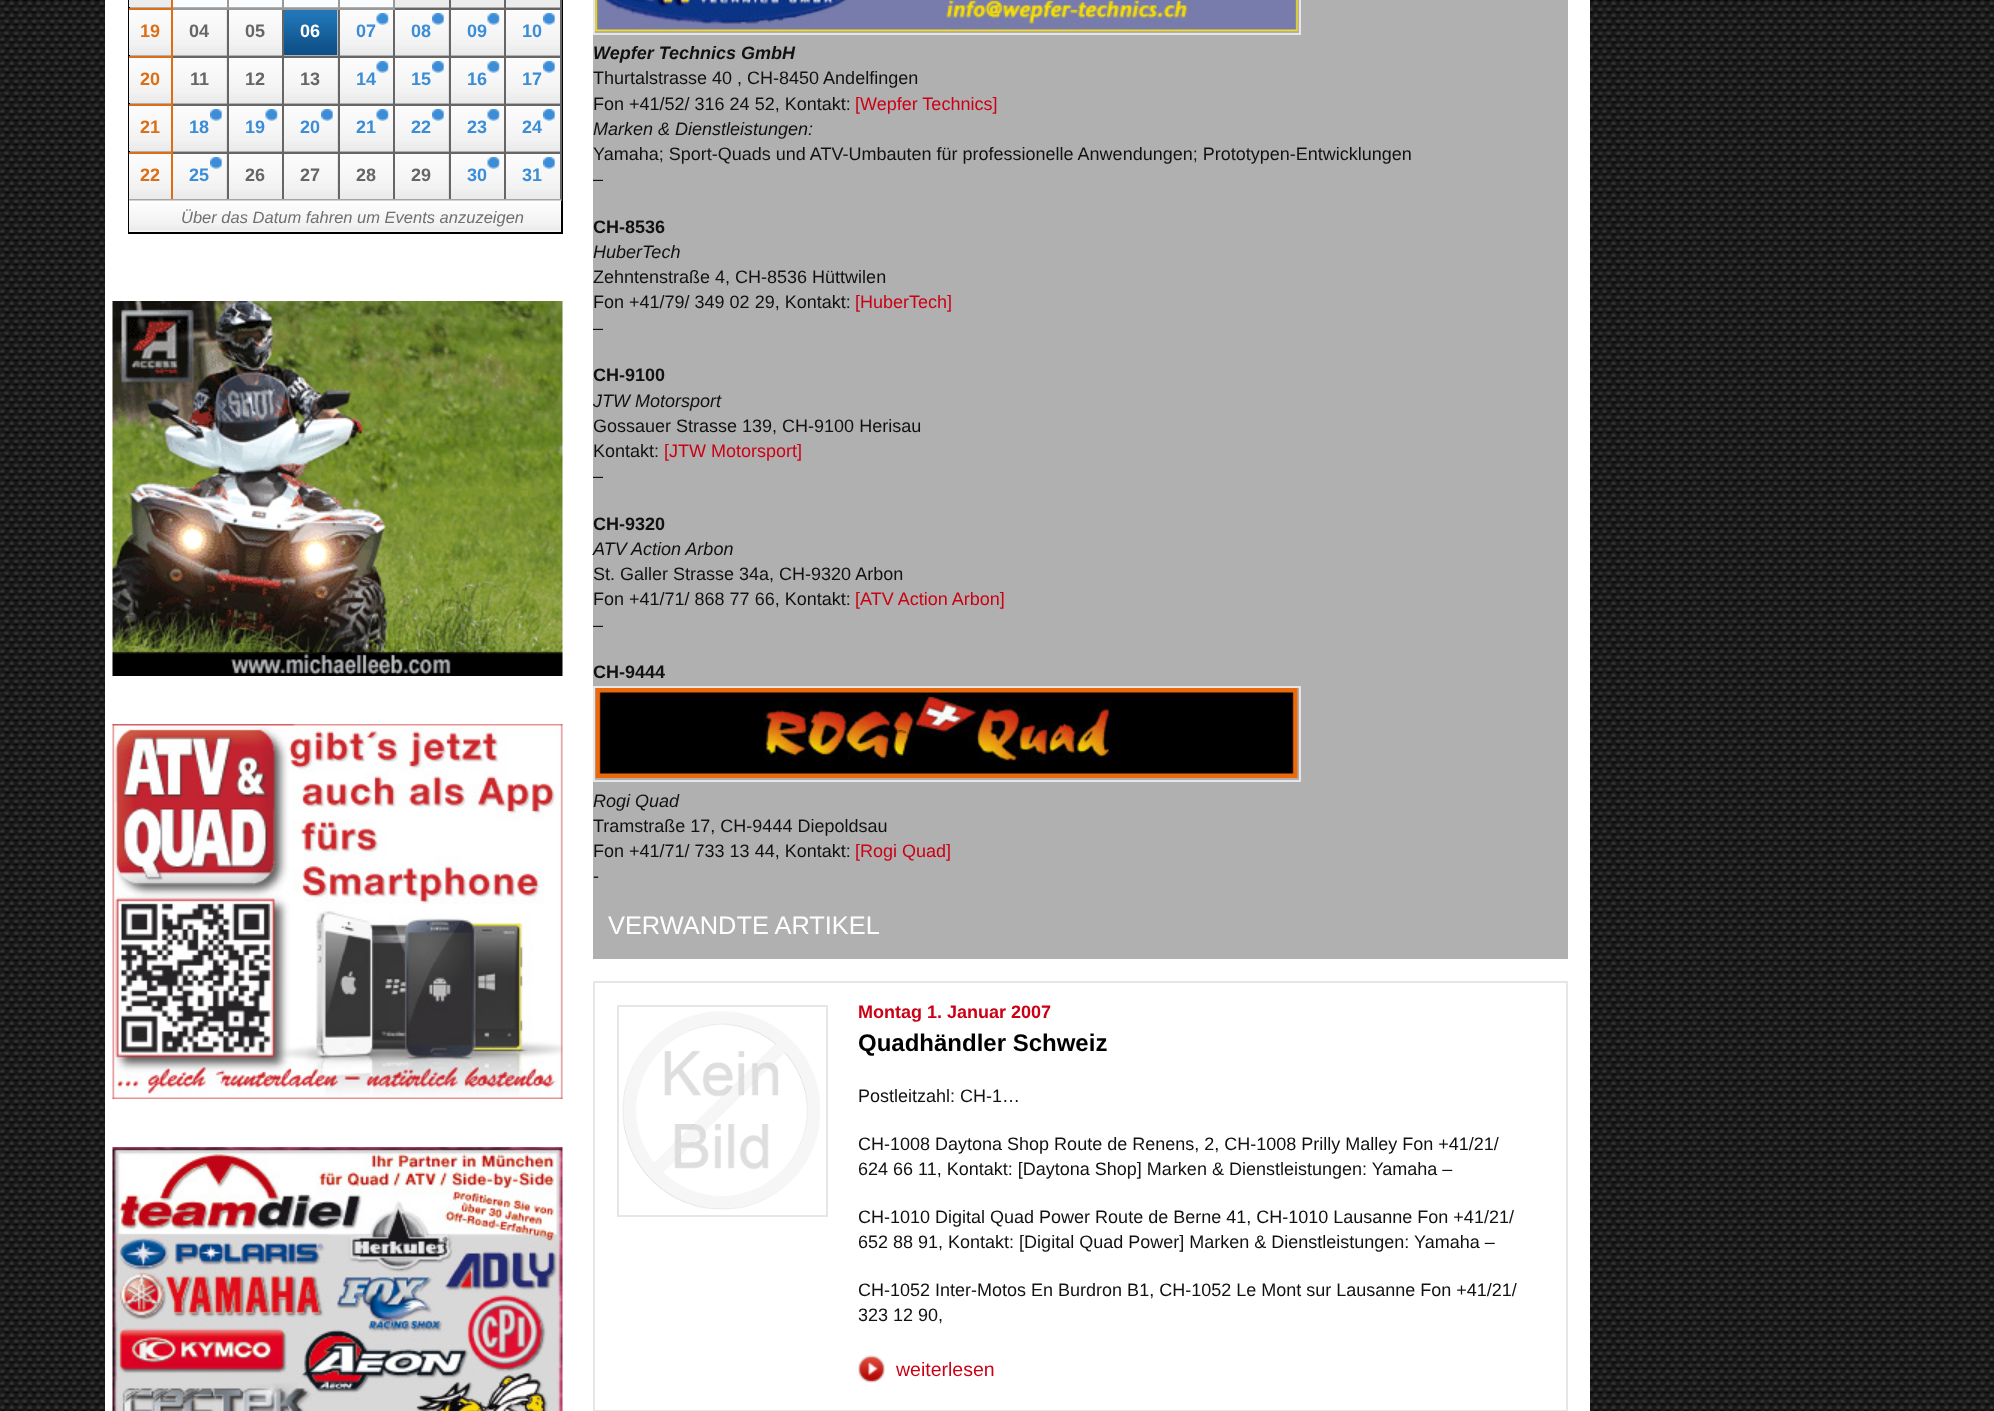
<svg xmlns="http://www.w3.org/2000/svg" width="1994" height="1411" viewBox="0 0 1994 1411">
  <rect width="100%" height="100%" fill="#ffffff"/>
  <image x="0" y="0" width="1994" height="1411" href="img1.png"/>
  <rect x="105" y="0" width="1485" height="1411" fill="#ffffff"/>
  <rect x="130" y="7" width="430" height="192" fill="#b0b0b0"/>
  <rect x="129" y="-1" width="433" height="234" fill="none" stroke="#000000" stroke-width="2"/>
  <rect x="129" y="0" width="42" height="7" fill="#ececec"/>
  <rect x="171" y="0" width="222" height="7" fill="#fafbfc"/>
  <rect x="393" y="0" width="168" height="7" fill="#ececec"/>
  <rect x="504" y="8" width="57" height="2" fill="#666666"/>
  <rect x="504" y="56" width="57" height="2" fill="#666666"/>
  <rect x="504" y="104" width="57" height="2" fill="#666666"/>
  <rect x="504" y="152" width="57" height="2" fill="#666666"/>
  <rect x="504" y="152" width="2" height="49" fill="#666666"/>
  <rect x="449" y="152" width="57" height="2" fill="#666666"/>
  <rect x="504" y="104" width="2" height="49" fill="#666666"/>
  <rect x="449" y="104" width="57" height="2" fill="#666666"/>
  <rect x="504" y="56" width="2" height="49" fill="#666666"/>
  <rect x="449" y="56" width="57" height="2" fill="#666666"/>
  <rect x="504" y="8" width="2" height="49" fill="#666666"/>
  <rect x="449" y="8" width="57" height="2" fill="#666666"/>
  <image x="395" y="10" width="54" height="45" href="img3.png"/>
  <image x="448" y="10" width="56" height="45" href="img4.png"/>
  <image x="395" y="58" width="54" height="45" href="img3.png"/>
  <image x="448" y="58" width="56" height="45" href="img4.png"/>
  <image x="395" y="106" width="54" height="45" href="img3.png"/>
  <image x="448" y="106" width="56" height="45" href="img4.png"/>
  <image x="395" y="154" width="54" height="45" href="img3.png"/>
  <image x="448" y="154" width="56" height="45" href="img4.png"/>
  <rect x="449" y="152" width="2" height="49" fill="#666666"/>
  <rect x="227" y="152" width="223" height="2" fill="#666666"/>
  <rect x="449" y="104" width="2" height="49" fill="#666666"/>
  <rect x="393" y="104" width="57" height="2" fill="#666666"/>
  <rect x="449" y="56" width="2" height="49" fill="#666666"/>
  <rect x="393" y="56" width="57" height="2" fill="#666666"/>
  <rect x="449" y="8" width="2" height="49" fill="#666666"/>
  <rect x="393" y="8" width="57" height="2" fill="#666666"/>
  <rect x="393" y="152" width="2" height="49" fill="#666666"/>
  <rect x="393" y="104" width="2" height="49" fill="#666666"/>
  <rect x="338" y="104" width="57" height="2" fill="#666666"/>
  <rect x="393" y="56" width="2" height="49" fill="#666666"/>
  <rect x="338" y="56" width="57" height="2" fill="#666666"/>
  <rect x="393" y="8" width="2" height="49" fill="#666666"/>
  <rect x="393" y="0" width="2" height="9" fill="#999999"/>
  <image x="284" y="10" width="54" height="45" href="img5.png"/>
  <image x="337" y="10" width="56" height="45" href="img6.png"/>
  <image x="284" y="58" width="54" height="45" href="img3.png"/>
  <image x="337" y="58" width="56" height="45" href="img4.png"/>
  <image x="284" y="106" width="54" height="45" href="img3.png"/>
  <image x="337" y="106" width="56" height="45" href="img4.png"/>
  <image x="284" y="154" width="54" height="45" href="img3.png"/>
  <image x="337" y="154" width="56" height="45" href="img4.png"/>
  <rect x="338" y="152" width="2" height="49" fill="#666666"/>
  <rect x="338" y="104" width="2" height="49" fill="#666666"/>
  <rect x="282" y="104" width="57" height="2" fill="#666666"/>
  <rect x="338" y="56" width="2" height="49" fill="#666666"/>
  <rect x="227" y="56" width="112" height="2" fill="#666666"/>
  <rect x="338" y="8" width="2" height="49" fill="#666666"/>
  <rect x="338" y="8" width="57" height="2" fill="#999999"/>
  <rect x="338" y="0" width="2" height="9" fill="#999999"/>
  <rect x="282" y="152" width="2" height="49" fill="#666666"/>
  <rect x="282" y="104" width="2" height="49" fill="#666666"/>
  <rect x="227" y="104" width="57" height="2" fill="#666666"/>
  <rect x="282" y="8" width="2" height="97" fill="#666666"/>
  <rect x="282" y="8" width="57" height="2" fill="#999999"/>
  <rect x="282" y="0" width="2" height="9" fill="#999999"/>
  <image x="173" y="10" width="54" height="45" href="img3.png"/>
  <image x="226" y="10" width="56" height="45" href="img4.png"/>
  <image x="173" y="58" width="54" height="45" href="img3.png"/>
  <image x="226" y="58" width="56" height="45" href="img4.png"/>
  <image x="173" y="106" width="54" height="45" href="img3.png"/>
  <image x="226" y="106" width="56" height="45" href="img4.png"/>
  <image x="173" y="154" width="54" height="45" href="img3.png"/>
  <image x="226" y="154" width="56" height="45" href="img4.png"/>
  <rect x="227" y="152" width="2" height="49" fill="#666666"/>
  <rect x="227" y="104" width="2" height="49" fill="#666666"/>
  <rect x="227" y="8" width="2" height="97" fill="#666666"/>
  <rect x="227" y="8" width="57" height="2" fill="#999999"/>
  <rect x="227" y="0" width="2" height="9" fill="#999999"/>
  <rect x="171" y="152" width="2" height="49" fill="#dc6f15"/>
  <rect x="171" y="152" width="57" height="2" fill="#666666"/>
  <rect x="171" y="104" width="2" height="49" fill="#dc6f15"/>
  <rect x="171" y="104" width="57" height="2" fill="#666666"/>
  <rect x="171" y="56" width="2" height="49" fill="#dc6f15"/>
  <rect x="171" y="56" width="57" height="2" fill="#666666"/>
  <rect x="171" y="8" width="2" height="49" fill="#dc6f15"/>
  <rect x="171" y="8" width="57" height="2" fill="#999999"/>
  <rect x="171" y="0" width="2" height="9" fill="#dc6f15"/>
  <rect x="129" y="8" width="44" height="2" fill="#dc6f15"/>
  <rect x="449" y="0" width="2" height="9" fill="#666666"/>
  <rect x="504" y="0" width="2" height="9" fill="#666666"/>
  <image x="129" y="10" width="42" height="45" href="img2.png"/>
  <rect x="129" y="56" width="44" height="2" fill="#dc6f15"/>
  <text x="140" y="37" font-family="Liberation Sans" font-size="18" font-weight="bold" fill="#dc6f15">19</text>
  <text x="189" y="37" font-family="Liberation Sans" font-size="18" font-weight="bold" fill="#666666">04</text>
  <text x="245" y="37" font-family="Liberation Sans" font-size="18" font-weight="bold" fill="#666666">05</text>
  <text x="300" y="37" font-family="Liberation Sans" font-size="18" font-weight="bold" fill="#ffffff">06</text>
  <image x="376" y="13" width="13" height="12" href="img7.png"/>
  <text x="356" y="37" font-family="Liberation Sans" font-size="18" font-weight="bold" fill="#3a8dd6">07</text>
  <image x="432" y="13" width="12" height="12" href="img8.png"/>
  <text x="411" y="37" font-family="Liberation Sans" font-size="18" font-weight="bold" fill="#3a8dd6">08</text>
  <image x="487" y="13" width="13" height="12" href="img7.png"/>
  <text x="467" y="37" font-family="Liberation Sans" font-size="18" font-weight="bold" fill="#3a8dd6">09</text>
  <image x="506" y="10" width="54" height="45" href="img9.png"/>
  <rect x="560" y="152" width="2" height="49" fill="#666666"/>
  <rect x="560" y="104" width="2" height="49" fill="#666666"/>
  <rect x="560" y="56" width="2" height="49" fill="#666666"/>
  <rect x="560" y="0" width="2" height="57" fill="#666666"/>
  <image x="543" y="13" width="12" height="12" href="img8.png"/>
  <text x="522" y="37" font-family="Liberation Sans" font-size="18" font-weight="bold" fill="#3a8dd6">10</text>
  <image x="129" y="58" width="42" height="45" href="img2.png"/>
  <rect x="129" y="104" width="44" height="2" fill="#dc6f15"/>
  <text x="140" y="85" font-family="Liberation Sans" font-size="18" font-weight="bold" fill="#dc6f15">20</text>
  <text x="190" y="85" font-family="Liberation Sans" font-size="18" font-weight="bold" fill="#666666">11</text>
  <text x="245" y="85" font-family="Liberation Sans" font-size="18" font-weight="bold" fill="#666666">12</text>
  <text x="300" y="85" font-family="Liberation Sans" font-size="18" font-weight="bold" fill="#666666">13</text>
  <image x="376" y="61" width="13" height="12" href="img7.png"/>
  <text x="356" y="85" font-family="Liberation Sans" font-size="18" font-weight="bold" fill="#3a8dd6">14</text>
  <image x="432" y="61" width="12" height="12" href="img8.png"/>
  <text x="411" y="85" font-family="Liberation Sans" font-size="18" font-weight="bold" fill="#3a8dd6">15</text>
  <image x="487" y="61" width="13" height="12" href="img7.png"/>
  <text x="467" y="85" font-family="Liberation Sans" font-size="18" font-weight="bold" fill="#3a8dd6">16</text>
  <image x="506" y="58" width="54" height="45" href="img9.png"/>
  <image x="543" y="61" width="12" height="12" href="img8.png"/>
  <text x="522" y="85" font-family="Liberation Sans" font-size="18" font-weight="bold" fill="#3a8dd6">17</text>
  <image x="129" y="106" width="42" height="45" href="img2.png"/>
  <rect x="129" y="152" width="44" height="2" fill="#dc6f15"/>
  <text x="140" y="133" font-family="Liberation Sans" font-size="18" font-weight="bold" fill="#dc6f15">21</text>
  <image x="210" y="109" width="12" height="12" href="img8.png"/>
  <text x="189" y="133" font-family="Liberation Sans" font-size="18" font-weight="bold" fill="#3a8dd6">18</text>
  <image x="265" y="109" width="13" height="12" href="img7.png"/>
  <text x="245" y="133" font-family="Liberation Sans" font-size="18" font-weight="bold" fill="#3a8dd6">19</text>
  <image x="321" y="109" width="12" height="12" href="img8.png"/>
  <text x="300" y="133" font-family="Liberation Sans" font-size="18" font-weight="bold" fill="#3a8dd6">20</text>
  <image x="376" y="109" width="13" height="12" href="img7.png"/>
  <text x="356" y="133" font-family="Liberation Sans" font-size="18" font-weight="bold" fill="#3a8dd6">21</text>
  <image x="432" y="109" width="12" height="12" href="img8.png"/>
  <text x="411" y="133" font-family="Liberation Sans" font-size="18" font-weight="bold" fill="#3a8dd6">22</text>
  <image x="487" y="109" width="13" height="12" href="img7.png"/>
  <text x="467" y="133" font-family="Liberation Sans" font-size="18" font-weight="bold" fill="#3a8dd6">23</text>
  <image x="506" y="106" width="54" height="45" href="img9.png"/>
  <image x="543" y="109" width="12" height="12" href="img8.png"/>
  <text x="522" y="133" font-family="Liberation Sans" font-size="18" font-weight="bold" fill="#3a8dd6">24</text>
  <image x="129" y="154" width="42" height="45" href="img2.png"/>
  <text x="140" y="181" font-family="Liberation Sans" font-size="18" font-weight="bold" fill="#dc6f15">22</text>
  <image x="210" y="157" width="12" height="12" href="img8.png"/>
  <text x="189" y="181" font-family="Liberation Sans" font-size="18" font-weight="bold" fill="#3a8dd6">25</text>
  <text x="245" y="181" font-family="Liberation Sans" font-size="18" font-weight="bold" fill="#666666">26</text>
  <text x="300" y="181" font-family="Liberation Sans" font-size="18" font-weight="bold" fill="#666666">27</text>
  <text x="356" y="181" font-family="Liberation Sans" font-size="18" font-weight="bold" fill="#666666">28</text>
  <text x="411" y="181" font-family="Liberation Sans" font-size="18" font-weight="bold" fill="#666666">29</text>
  <image x="487" y="157" width="13" height="12" href="img7.png"/>
  <text x="467" y="181" font-family="Liberation Sans" font-size="18" font-weight="bold" fill="#3a8dd6">30</text>
  <image x="506" y="154" width="54" height="45" href="img9.png"/>
  <image x="543" y="157" width="12" height="12" href="img8.png"/>
  <text x="522" y="181" font-family="Liberation Sans" font-size="18" font-weight="bold" fill="#3a8dd6">31</text>
  <image x="129" y="199" width="432" height="33" href="img10.png"/>
  <text x="181" y="223" font-family="Liberation Sans" font-size="16.5" font-style="italic" fill="#707070">Über das Datum fahren um Events anzuzeigen</text>
  <image x="112" y="301" width="451" height="375" href="img11.png"/>
  <image x="112" y="724" width="451" height="375" href="img12.png"/>
  <image x="112" y="1147" width="451" height="264" href="img13.png"/>
  <rect x="593" y="0" width="975" height="959" fill="#b0b0b0"/>
  <rect x="594" y="-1" width="706" height="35" fill="none" stroke="#e6e6e6" stroke-width="2"/>
  <image x="595" y="0" width="703" height="31" href="img14.png"/>
  <text x="593" y="59" font-family="Liberation Sans" font-size="18" font-weight="bold" font-style="italic" fill="#111111">Wepfer Technics GmbH</text>
  <text x="593" y="84" font-family="Liberation Sans" font-size="18" fill="#111111">Thurtalstrasse 40 , CH-8450 Andelfingen</text>
  <text x="593" y="110" font-family="Liberation Sans" font-size="18" fill="#111111">Fon +41/52/ 316 24 52, Kontakt:</text>
  <text x="855" y="110" font-family="Liberation Sans" font-size="18" fill="#cb0014">[Wepfer Technics]</text>
  <text x="593" y="135" font-family="Liberation Sans" font-size="18" font-style="italic" fill="#111111">Marken &amp; Dienstleistungen:</text>
  <text x="593" y="160" font-family="Liberation Sans" font-size="18" fill="#111111">Yamaha; Sport-Quads und ATV-Umbauten für professionelle Anwendungen; Prototypen-Entwicklungen</text>
  <text x="593" y="185" font-family="Liberation Sans" font-size="18" fill="#111111">–</text>
  <text x="593" y="233" font-family="Liberation Sans" font-size="18" font-weight="bold" fill="#111111">CH-8536</text>
  <text x="593" y="258" font-family="Liberation Sans" font-size="18" font-style="italic" fill="#111111">HuberTech</text>
  <text x="593" y="283" font-family="Liberation Sans" font-size="18" fill="#111111">Zehntenstraße 4, CH-8536 Hüttwilen</text>
  <text x="593" y="308" font-family="Liberation Sans" font-size="18" fill="#111111">Fon +41/79/ 349 02 29, Kontakt:</text>
  <text x="855" y="308" font-family="Liberation Sans" font-size="18" fill="#cb0014">[HuberTech]</text>
  <text x="593" y="334" font-family="Liberation Sans" font-size="18" fill="#111111">–</text>
  <text x="593" y="381" font-family="Liberation Sans" font-size="18" font-weight="bold" fill="#111111">CH-9100</text>
  <text x="593" y="407" font-family="Liberation Sans" font-size="18" font-style="italic" fill="#111111">JTW Motorsport</text>
  <text x="593" y="432" font-family="Liberation Sans" font-size="18" fill="#111111">Gossauer Strasse 139, CH-9100 Herisau</text>
  <text x="593" y="457" font-family="Liberation Sans" font-size="18" fill="#111111">Kontakt:</text>
  <text x="664" y="457" font-family="Liberation Sans" font-size="18" fill="#cb0014">[JTW Motorsport]</text>
  <text x="593" y="482" font-family="Liberation Sans" font-size="18" fill="#111111">–</text>
  <text x="593" y="530" font-family="Liberation Sans" font-size="18" font-weight="bold" fill="#111111">CH-9320</text>
  <text x="593" y="555" font-family="Liberation Sans" font-size="18" font-style="italic" fill="#111111">ATV Action Arbon</text>
  <text x="593" y="580" font-family="Liberation Sans" font-size="18" fill="#111111">St. Galler Strasse 34a, CH-9320 Arbon</text>
  <text x="593" y="605" font-family="Liberation Sans" font-size="18" fill="#111111">Fon +41/71/ 868 77 66, Kontakt:</text>
  <text x="855" y="605" font-family="Liberation Sans" font-size="18" fill="#cb0014">[ATV Action Arbon]</text>
  <text x="593" y="631" font-family="Liberation Sans" font-size="18" fill="#111111">–</text>
  <text x="593" y="678" font-family="Liberation Sans" font-size="18" font-weight="bold" fill="#111111">CH-9444</text>
  <rect x="594" y="687" width="706" height="94" fill="none" stroke="#e6e6e6" stroke-width="2"/>
  <image x="595" y="688" width="703" height="90" href="img15.png"/>
  <text x="593" y="807" font-family="Liberation Sans" font-size="18" font-style="italic" fill="#111111">Rogi Quad</text>
  <text x="593" y="832" font-family="Liberation Sans" font-size="18" fill="#111111">Tramstraße 17, CH-9444 Diepoldsau</text>
  <text x="593" y="857" font-family="Liberation Sans" font-size="18" fill="#111111">Fon +41/71/ 733 13 44, Kontakt:</text>
  <text x="855" y="857" font-family="Liberation Sans" font-size="18" fill="#cb0014">[Rogi Quad]</text>
  <text x="593" y="882" font-family="Liberation Sans" font-size="18" fill="#111111">-</text>
  <text x="608" y="934" font-family="Liberation Sans" font-size="25.4" fill="#ffffff">VERWANDTE ARTIKEL</text>
  <rect x="594" y="982" width="973" height="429" fill="none" stroke="#e6e6e6" stroke-width="2"/>
  <rect x="618" y="1006" width="209" height="210" fill="none" stroke="#e6e6e6" stroke-width="2"/>
  <image x="622" y="1011" width="198" height="199" href="img16.png"/>
  <text x="858" y="1018" font-family="Liberation Sans" font-size="18" font-weight="bold" fill="#cb0014">Montag 1. Januar 2007</text>
  <text x="858" y="1051" font-family="Liberation Sans" font-size="24" font-weight="bold" fill="#000000">Quadhändler Schweiz</text>
  <text x="858" y="1102" font-family="Liberation Sans" font-size="18" fill="#111111">Postleitzahl: CH-1…</text>
  <text x="858" y="1150" font-family="Liberation Sans" font-size="18" fill="#111111">CH-1008 Daytona Shop Route de Renens, 2, CH-1008 Prilly Malley Fon +41/21/</text>
  <text x="858" y="1175" font-family="Liberation Sans" font-size="18" fill="#111111">624 66 11, Kontakt: [Daytona Shop] Marken &amp; Dienstleistungen: Yamaha –</text>
  <text x="858" y="1223" font-family="Liberation Sans" font-size="18" fill="#111111">CH-1010 Digital Quad Power Route de Berne 41, CH-1010 Lausanne Fon +41/21/</text>
  <text x="858" y="1248" font-family="Liberation Sans" font-size="18" fill="#111111">652 88 91, Kontakt: [Digital Quad Power] Marken &amp; Dienstleistungen: Yamaha –</text>
  <text x="858" y="1296" font-family="Liberation Sans" font-size="18" fill="#111111">CH-1052 Inter-Motos En Burdron B1, CH-1052 Le Mont sur Lausanne Fon +41/21/</text>
  <text x="858" y="1321" font-family="Liberation Sans" font-size="18" fill="#111111">323 12 90,</text>
  <image x="858" y="1355" width="27" height="28" href="img17.png"/>
  <text x="896" y="1376" font-family="Liberation Sans" font-size="19.5" fill="#cb0014">weiterlesen</text>
</svg>
